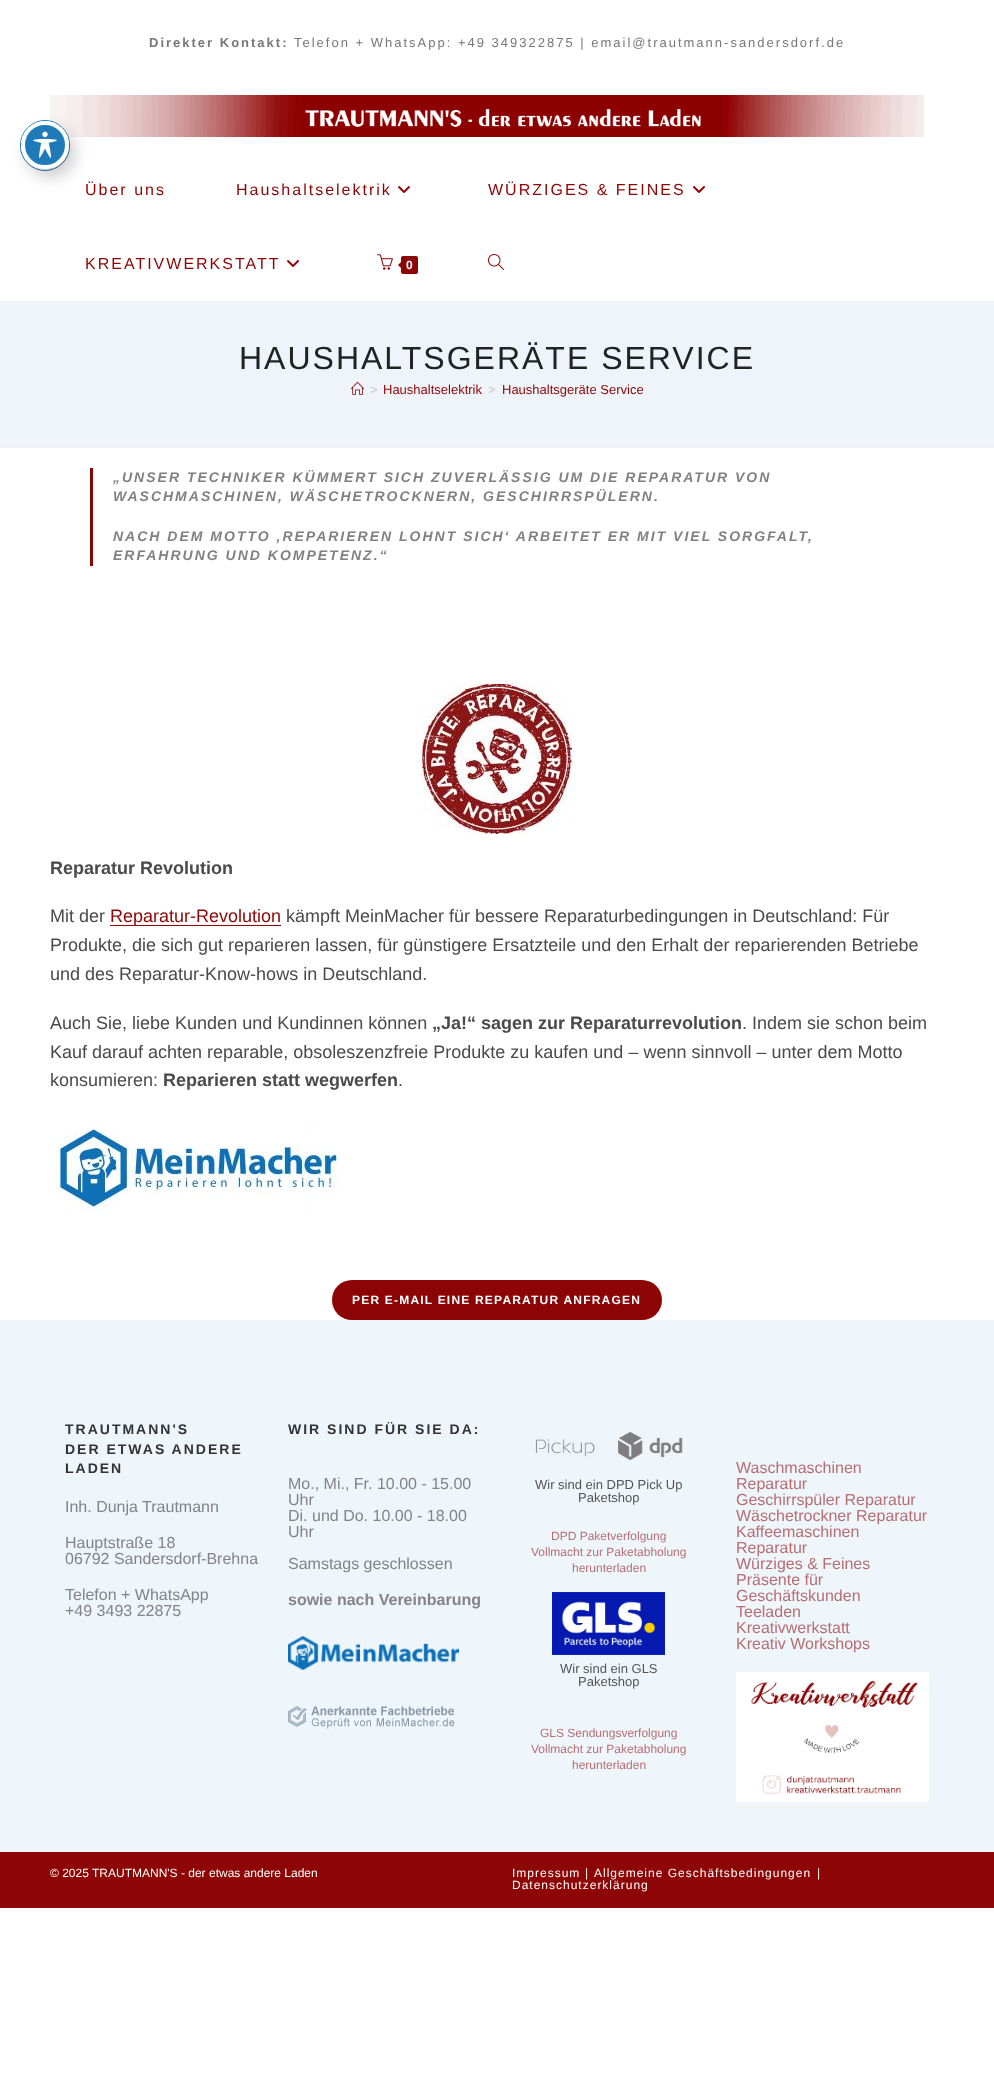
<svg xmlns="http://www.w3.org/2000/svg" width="994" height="2084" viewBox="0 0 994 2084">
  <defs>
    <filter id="blur1" x="-50%" y="-200%" width="200%" height="500%"><feGaussianBlur stdDeviation="8"/></filter>
  </defs>
  <rect width="100%" height="100%" fill="#ffffff"/>
  <text x="149" y="47" font-family="Liberation Sans" font-size="13" font-weight="bold" letter-spacing="2" fill="#777777">Direkter Kontakt:</text>
  <text x="294" y="47" font-family="Liberation Sans" font-size="13" letter-spacing="2" fill="#777777">Telefon + WhatsApp: +49 349322875 | email@trautmann-sandersdorf.de</text>
  <rect x="0" y="301" width="994" height="1" fill="#f1f1f1"/>
  <image x="50" y="95" width="874" height="42" href="img1.png"/>
  <text x="85" y="195" font-family="Liberation Sans" font-size="16" letter-spacing="2" fill="#8d0504">Über uns</text>
  <text x="236" y="195" font-family="Liberation Sans" font-size="16" letter-spacing="2" fill="#8d0504">Haushaltselektrik</text>
  <image x="398" y="186" width="12" height="7" href="img2.png"/>
  <text x="488" y="195" font-family="Liberation Sans" font-size="16" letter-spacing="2" fill="#8d0504">WÜRZIGES &amp; FEINES</text>
  <image x="693" y="186" width="12" height="7" href="img2.png"/>
  <text x="85" y="269" font-family="Liberation Sans" font-size="16" letter-spacing="2" fill="#8d0504">KREATIVWERKSTATT</text>
  <image x="287" y="260" width="12" height="7" href="img2.png"/>
  <image x="377" y="254" width="16" height="16" href="img3.png"/>
  <rect x="401" y="256" width="17" height="18" rx="2" fill="#8d0405"/>
  <path d="M403 260V270L398 265Z" fill="#8d0405"/>
  <text x="406" y="269" font-family="Liberation Sans" font-size="12" font-weight="bold" fill="#ffffff">0</text>
  <image x="488" y="254" width="16" height="16" href="img4.png"/>
  <rect x="0" y="302" width="994" height="145" fill="#eef4fa"/>
  <rect x="0" y="447" width="994" height="1" fill="#f1f1f1"/>
  <text x="239" y="369" font-family="Liberation Sans" font-size="32" letter-spacing="2" fill="#212223">HAUSHALTSGERÄTE SERVICE</text>
  <image x="351" y="381" width="13" height="14" href="img5.png"/>
  <text x="370" y="394" font-family="Liberation Sans" font-size="13" fill="#c6c6c6">&gt;</text>
  <text x="383" y="394" font-family="Liberation Sans" font-size="13" fill="#8d0504">Haushaltselektrik</text>
  <text x="488" y="394" font-family="Liberation Sans" font-size="13" fill="#c6c6c6">&gt;</text>
  <text x="502" y="394" font-family="Liberation Sans" font-size="13" fill="#8d0504">Haushaltsgeräte Service</text>
  <rect x="90" y="468" width="3" height="98" fill="#8d0405"/>
  <text x="113" y="482" font-family="Liberation Sans" font-size="14" font-weight="bold" font-style="italic" letter-spacing="2" fill="#808080">„UNSER TECHNIKER KÜMMERT SICH ZUVERLÄSSIG UM DIE REPARATUR VON</text>
  <text x="113" y="501" font-family="Liberation Sans" font-size="14" font-weight="bold" font-style="italic" letter-spacing="2" fill="#808080">WASCHMASCHINEN, WÄSCHETROCKNERN, GESCHIRRSPÜLERN.</text>
  <text x="113" y="541" font-family="Liberation Sans" font-size="14" font-weight="bold" font-style="italic" letter-spacing="2" fill="#808080">NACH DEM MOTTO ‚REPARIEREN LOHNT SICH‘ ARBEITET ER MIT VIEL SORGFALT,</text>
  <text x="113" y="560" font-family="Liberation Sans" font-size="14" font-weight="bold" font-style="italic" letter-spacing="2" fill="#808080">ERFAHRUNG UND KOMPETENZ.“</text>
  <image x="422" y="684" width="150" height="150" href="img6.png"/>
  <text x="50" y="874" font-family="Liberation Sans" font-size="18" font-weight="bold" fill="#4a4a4a">Reparatur Revolution</text>
  <text x="50" y="922" font-family="Liberation Sans" font-size="18" fill="#4a4a4a">Mit der</text>
  <rect x="110" y="925" width="171" height="1" fill="#8d0504"/>
  <text x="110" y="922" font-family="Liberation Sans" font-size="18" fill="#8d0504">Reparatur-Revolution</text>
  <text x="286" y="922" font-family="Liberation Sans" font-size="18" fill="#4a4a4a">kämpft MeinMacher für bessere Reparaturbedingungen in Deutschland: Für</text>
  <text x="50" y="951" font-family="Liberation Sans" font-size="18" fill="#4a4a4a">Produkte, die sich gut reparieren lassen, für günstigere Ersatzteile und den Erhalt der reparierenden Betriebe</text>
  <text x="50" y="980" font-family="Liberation Sans" font-size="18" fill="#4a4a4a">und des Reparatur-Know-hows in Deutschland.</text>
  <text x="50" y="1029" font-family="Liberation Sans" font-size="18" fill="#4a4a4a">Auch Sie, liebe Kunden und Kundinnen können</text>
  <text x="432" y="1029" font-family="Liberation Sans" font-size="18" font-weight="bold" fill="#4a4a4a">„Ja!“ sagen zur Reparaturrevolution</text>
  <text x="742" y="1029" font-family="Liberation Sans" font-size="18" fill="#4a4a4a">. Indem sie schon beim</text>
  <text x="50" y="1058" font-family="Liberation Sans" font-size="18" fill="#4a4a4a">Kauf darauf achten reparable, obsoleszenzfreie Produkte zu kaufen und – wenn sinnvoll – unter dem Motto</text>
  <text x="50" y="1086" font-family="Liberation Sans" font-size="18" fill="#4a4a4a">konsumieren:</text>
  <text x="163" y="1086" font-family="Liberation Sans" font-size="18" font-weight="bold" fill="#4a4a4a">Reparieren statt wegwerfen</text>
  <text x="398" y="1086" font-family="Liberation Sans" font-size="18" fill="#4a4a4a">.</text>
  <image x="50" y="1121" width="289" height="90" href="img7.png"/>
  <rect x="332" y="1280" width="330" height="40" rx="20" fill="#8d0405"/>
  <text x="352" y="1304" font-family="Liberation Sans" font-size="12" font-weight="bold" letter-spacing="1.2" fill="#ffffff">PER E-MAIL EINE REPARATUR ANFRAGEN</text>
  <rect x="0" y="1320" width="994" height="532" fill="#eef5fb"/>
  <text x="65" y="1434" font-family="Liberation Sans" font-size="14" font-weight="bold" letter-spacing="2" fill="#333333">TRAUTMANN'S</text>
  <text x="65" y="1454" font-family="Liberation Sans" font-size="14" font-weight="bold" letter-spacing="2" fill="#333333">DER ETWAS ANDERE</text>
  <text x="65" y="1473" font-family="Liberation Sans" font-size="14" font-weight="bold" letter-spacing="2" fill="#333333">LADEN</text>
  <text x="65" y="1512" font-family="Liberation Sans" font-size="16" fill="#828487">Inh. Dunja Trautmann</text>
  <text x="65" y="1548" font-family="Liberation Sans" font-size="16" fill="#828487">Hauptstraße 18</text>
  <text x="65" y="1564" font-family="Liberation Sans" font-size="16" fill="#828487">06792 Sandersdorf-Brehna</text>
  <text x="65" y="1600" font-family="Liberation Sans" font-size="16" fill="#828487">Telefon + WhatsApp</text>
  <text x="65" y="1616" font-family="Liberation Sans" font-size="16" fill="#828487">+49 3493 22875</text>
  <text x="288" y="1434" font-family="Liberation Sans" font-size="14" font-weight="bold" letter-spacing="2" fill="#333333">WIR SIND FÜR SIE DA:</text>
  <text x="288" y="1489" font-family="Liberation Sans" font-size="16" fill="#828487">Mo., Mi., Fr. 10.00 - 15.00</text>
  <text x="288" y="1505" font-family="Liberation Sans" font-size="16" fill="#828487">Uhr</text>
  <text x="288" y="1521" font-family="Liberation Sans" font-size="16" fill="#828487">Di. und Do. 10.00 - 18.00</text>
  <text x="288" y="1537" font-family="Liberation Sans" font-size="16" fill="#828487">Uhr</text>
  <text x="288" y="1569" font-family="Liberation Sans" font-size="16" fill="#828487">Samstags geschlossen</text>
  <text x="288" y="1605" font-family="Liberation Sans" font-size="16" font-weight="bold" fill="#828487">sowie nach Vereinbarung</text>
  <image x="288" y="1636" width="171" height="34" href="img8.png"/>
  <image x="288" y="1706" width="167" height="23" href="img9.png"/>
  <image x="535" y="1431" width="148" height="30" href="img10.png"/>
  <text x="535" y="1489" font-family="Liberation Sans" font-size="13" fill="#555555">Wir sind ein DPD Pick Up</text>
  <text x="578" y="1502" font-family="Liberation Sans" font-size="13" fill="#555555">Paketshop</text>
  <text x="551" y="1540" font-family="Liberation Sans" font-size="12" fill="#b76e71">DPD Paketverfolgung</text>
  <text x="531" y="1556" font-family="Liberation Sans" font-size="12" fill="#b76e71">Vollmacht zur Paketabholung</text>
  <text x="572" y="1572" font-family="Liberation Sans" font-size="12" fill="#b76e71">herunterladen</text>
  <image x="552" y="1592" width="113" height="63" href="img11.png"/>
  <text x="560" y="1673" font-family="Liberation Sans" font-size="13" fill="#555555">Wir sind ein GLS</text>
  <text x="578" y="1686" font-family="Liberation Sans" font-size="13" fill="#555555">Paketshop</text>
  <text x="540" y="1737" font-family="Liberation Sans" font-size="12" fill="#b76e71">GLS Sendungsverfolgung</text>
  <text x="531" y="1753" font-family="Liberation Sans" font-size="12" fill="#b76e71">Vollmacht zur Paketabholung</text>
  <text x="572" y="1769" font-family="Liberation Sans" font-size="12" fill="#b76e71">herunterladen</text>
  <text x="736" y="1473" font-family="Liberation Sans" font-size="16" fill="#b76e71">Waschmaschinen</text>
  <text x="736" y="1489" font-family="Liberation Sans" font-size="16" fill="#b76e71">Reparatur</text>
  <text x="736" y="1505" font-family="Liberation Sans" font-size="16" fill="#b76e71">Geschirrspüler Reparatur</text>
  <text x="736" y="1521" font-family="Liberation Sans" font-size="16" fill="#b76e71">Wäschetrockner Reparatur</text>
  <text x="736" y="1537" font-family="Liberation Sans" font-size="16" fill="#b76e71">Kaffeemaschinen</text>
  <text x="736" y="1553" font-family="Liberation Sans" font-size="16" fill="#b76e71">Reparatur</text>
  <text x="736" y="1569" font-family="Liberation Sans" font-size="16" fill="#b76e71">Würziges &amp; Feines</text>
  <text x="736" y="1585" font-family="Liberation Sans" font-size="16" fill="#b76e71">Präsente für</text>
  <text x="736" y="1601" font-family="Liberation Sans" font-size="16" fill="#b76e71">Geschäftskunden</text>
  <text x="736" y="1617" font-family="Liberation Sans" font-size="16" fill="#b76e71">Teeladen</text>
  <text x="736" y="1633" font-family="Liberation Sans" font-size="16" fill="#b76e71">Kreativwerkstatt</text>
  <text x="736" y="1649" font-family="Liberation Sans" font-size="16" fill="#b76e71">Kreativ Workshops</text>
  <image x="736" y="1672" width="193" height="130" href="img12.png"/>
  <rect x="0" y="1852" width="994" height="56" fill="#8d0504"/>
  <text x="50" y="1877" font-family="Liberation Sans" font-size="12" fill="#ffffff">© 2025 TRAUTMANN'S - der etwas andere Laden</text>
  <text x="512" y="1877" font-family="Liberation Sans" font-size="12" letter-spacing="1" fill="#ffffff">Impressum</text>
  <text x="585" y="1877" font-family="Liberation Sans" font-size="12" letter-spacing="1" fill="#ffffff">|</text>
  <text x="594" y="1877" font-family="Liberation Sans" font-size="12" letter-spacing="1" fill="#ffffff">Allgemeine Geschäftsbedingungen</text>
  <text x="817" y="1877" font-family="Liberation Sans" font-size="12" letter-spacing="1" fill="#ffffff">|</text>
  <text x="512" y="1889" font-family="Liberation Sans" font-size="12" letter-spacing="1" fill="#ffffff">Datenschutzerklärung</text>
  <rect x="20.5" y="120.5" width="49" height="50" rx="24.5" fill="none" stroke="#1e7ab9"/>
  <rect x="27" y="129" width="48" height="48" rx="24" fill="#000000" fill-opacity="0.2" filter="url(#blur1)"/>
  <circle cx="45" cy="145" r="22" fill="#1e7ab9" stroke="#ffffff" stroke-width="4"/>
  <image x="33" y="131" width="24" height="27" href="img13.png"/>
</svg>
